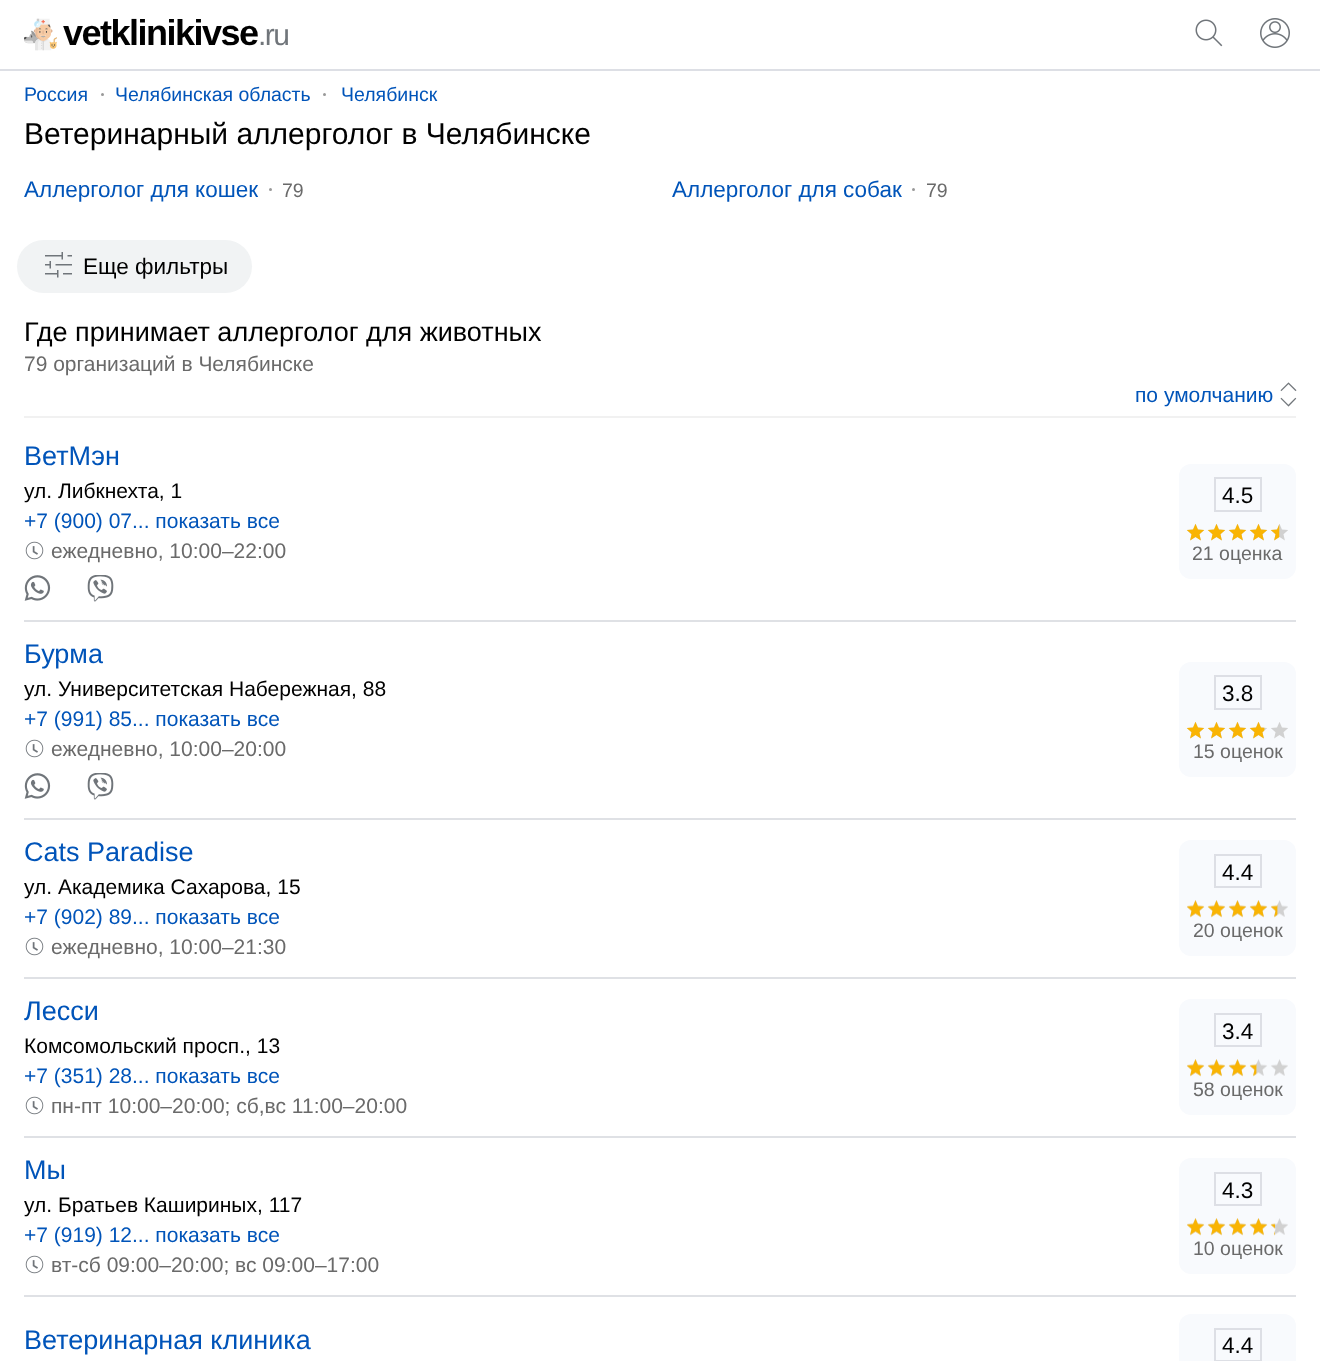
<svg xmlns="http://www.w3.org/2000/svg" width="1320" height="1361" viewBox="0 0 1320 1361">
  <rect width="100%" height="100%" fill="#ffffff"/>
  <rect x="0" y="69" width="1320" height="2" fill="#dddfe5"/>
  <image x="24" y="18" width="33" height="33" href="img1.png"/>
  <text x="63" y="45" font-family="Liberation Sans" font-size="36" font-weight="bold" letter-spacing="-1.5" fill="#000000">vetklinikivse</text>
  <text x="258" y="45" font-family="Liberation Sans" font-size="30" letter-spacing="-1.5" fill="#70757a">.ru</text>
  <image x="1195" y="19" width="28" height="28" href="img2.png"/>
  <image x="1260" y="18" width="30" height="30" href="img3.png"/>
  <text x="24" y="101" font-family="Liberation Sans" font-size="19.5" fill="#0054b9">Россия</text>
  <circle cx="102.5" cy="94.5" r="1.5" fill="#999999"/>
  <text x="115" y="101" font-family="Liberation Sans" font-size="19.5" fill="#0054b9">Челябинская область</text>
  <circle cx="324.5" cy="94.5" r="1.5" fill="#999999"/>
  <text x="341" y="101" font-family="Liberation Sans" font-size="19.5" fill="#0054b9">Челябинск</text>
  <text x="24" y="144" font-family="Liberation Sans" font-size="30" fill="#000000">Ветеринарный аллерголог в Челябинске</text>
  <text x="24" y="197" font-family="Liberation Sans" font-size="22.5" fill="#0054b9">Аллерголог для кошек</text>
  <circle cx="270.5" cy="189.5" r="1.5" fill="#999999"/>
  <text x="282" y="197" font-family="Liberation Sans" font-size="19.5" fill="#6a6a6a">79</text>
  <text x="672" y="197" font-family="Liberation Sans" font-size="22.5" fill="#0054b9">Аллерголог для собак</text>
  <circle cx="913.5" cy="189.5" r="1.5" fill="#999999"/>
  <text x="926" y="197" font-family="Liberation Sans" font-size="19.5" fill="#6a6a6a">79</text>
  <rect x="17" y="240" width="235" height="53" rx="26.5" fill="#f1f3f4"/>
  <image x="45" y="252" width="27" height="26" href="img4.png"/>
  <text x="83" y="274" font-family="Liberation Sans" font-size="22.5" fill="#000000">Еще фильтры</text>
  <text x="24" y="341" font-family="Liberation Sans" font-size="27" fill="#000000">Где принимает аллерголог для животных</text>
  <text x="24" y="371" font-family="Liberation Sans" font-size="21" fill="#6a6a6a">79 организаций в Челябинске</text>
  <rect x="24" y="416" width="1272" height="2" fill="#f1f1f1"/>
  <text x="1135" y="402" font-family="Liberation Sans" font-size="21" fill="#0054b9">по умолчанию</text>
  <image x="1280" y="382" width="17" height="25" href="img5.png"/>
  <text x="24" y="465" font-family="Liberation Sans" font-size="27" fill="#0054b9">ВетМэн</text>
  <text x="24" y="498" font-family="Liberation Sans" font-size="21" fill="#000000">ул. Либкнехта, 1</text>
  <text x="24" y="528" font-family="Liberation Sans" font-size="21" fill="#0054b9">+7 (900) 07... показать все</text>
  <image x="25" y="541" width="19" height="19" href="img6.png"/>
  <text x="51" y="558" font-family="Liberation Sans" font-size="21" fill="#6a6a6a">ежедневно, 10:00–22:00</text>
  <image x="24" y="575" width="27" height="26" href="img7.png"/>
  <image x="87" y="575" width="27" height="27" href="img8.png"/>
  <rect x="1179" y="464" width="117" height="115" rx="12" fill="#f8fafd"/>
  <rect x="1215" y="478" width="46" height="33" fill="none" stroke="#dddfe5" stroke-width="2"/>
  <text x="1222" y="503" font-family="Liberation Sans" font-size="22.5" fill="#000000">4.5</text>
  <image x="1187" y="524" width="101" height="17" href="img10.png"/>
  <image x="1186" y="523" width="94" height="18" href="img9.png"/>
  <text x="1192" y="560" font-family="Liberation Sans" font-size="19.5" fill="#6a6a6a">21 оценка</text>
  <rect x="24" y="620" width="1272" height="2" fill="#dfe1e5"/>
  <text x="24" y="663" font-family="Liberation Sans" font-size="27" fill="#0054b9">Бурма</text>
  <text x="24" y="696" font-family="Liberation Sans" font-size="21" fill="#000000">ул. Университетская Набережная, 88</text>
  <text x="24" y="726" font-family="Liberation Sans" font-size="21" fill="#0054b9">+7 (991) 85... показать все</text>
  <image x="25" y="739" width="19" height="19" href="img6.png"/>
  <text x="51" y="756" font-family="Liberation Sans" font-size="21" fill="#6a6a6a">ежедневно, 10:00–20:00</text>
  <image x="24" y="773" width="27" height="26" href="img7.png"/>
  <image x="87" y="773" width="27" height="27" href="img8.png"/>
  <rect x="1179" y="662" width="117" height="115" rx="12" fill="#f8fafd"/>
  <rect x="1215" y="676" width="46" height="33" fill="none" stroke="#dddfe5" stroke-width="2"/>
  <text x="1222" y="701" font-family="Liberation Sans" font-size="22.5" fill="#000000">3.8</text>
  <image x="1187" y="722" width="101" height="17" href="img10.png"/>
  <image x="1186" y="721" width="79" height="18" href="img11.png"/>
  <text x="1193" y="758" font-family="Liberation Sans" font-size="19.5" fill="#6a6a6a">15 оценок</text>
  <rect x="24" y="818" width="1272" height="2" fill="#dfe1e5"/>
  <text x="24" y="861" font-family="Liberation Sans" font-size="27" fill="#0054b9">Cats Paradise</text>
  <text x="24" y="894" font-family="Liberation Sans" font-size="21" fill="#000000">ул. Академика Сахарова, 15</text>
  <text x="24" y="924" font-family="Liberation Sans" font-size="21" fill="#0054b9">+7 (902) 89... показать все</text>
  <image x="25" y="937" width="19" height="19" href="img6.png"/>
  <text x="51" y="954" font-family="Liberation Sans" font-size="21" fill="#6a6a6a">ежедневно, 10:00–21:30</text>
  <rect x="1179" y="840" width="117" height="116" rx="12" fill="#f8fafd"/>
  <rect x="1215" y="855" width="46" height="32" fill="none" stroke="#dddfe5" stroke-width="2"/>
  <text x="1222" y="880" font-family="Liberation Sans" font-size="22.5" fill="#000000">4.4</text>
  <image x="1187" y="900" width="101" height="17" href="img12.png"/>
  <image x="1187" y="900" width="91" height="18" href="img13.png"/>
  <text x="1193" y="937" font-family="Liberation Sans" font-size="19.5" fill="#6a6a6a">20 оценок</text>
  <rect x="24" y="977" width="1272" height="2" fill="#dfe1e5"/>
  <text x="24" y="1020" font-family="Liberation Sans" font-size="27" fill="#0054b9">Лесси</text>
  <text x="24" y="1053" font-family="Liberation Sans" font-size="21" fill="#000000">Комсомольский просп., 13</text>
  <text x="24" y="1083" font-family="Liberation Sans" font-size="21" fill="#0054b9">+7 (351) 28... показать все</text>
  <image x="25" y="1096" width="19" height="19" href="img6.png"/>
  <text x="51" y="1113" font-family="Liberation Sans" font-size="21" fill="#6a6a6a">пн-пт 10:00–20:00; сб,вс 11:00–20:00</text>
  <rect x="1179" y="999" width="117" height="116" rx="12" fill="#f8fafd"/>
  <rect x="1215" y="1014" width="46" height="32" fill="none" stroke="#dddfe5" stroke-width="2"/>
  <text x="1222" y="1039" font-family="Liberation Sans" font-size="22.5" fill="#000000">3.4</text>
  <image x="1187" y="1059" width="101" height="17" href="img12.png"/>
  <image x="1187" y="1059" width="70" height="18" href="img14.png"/>
  <text x="1193" y="1096" font-family="Liberation Sans" font-size="19.5" fill="#6a6a6a">58 оценок</text>
  <rect x="24" y="1136" width="1272" height="2" fill="#dfe1e5"/>
  <text x="24" y="1179" font-family="Liberation Sans" font-size="27" fill="#0054b9">Мы</text>
  <text x="24" y="1212" font-family="Liberation Sans" font-size="21" fill="#000000">ул. Братьев Кашириных, 117</text>
  <text x="24" y="1242" font-family="Liberation Sans" font-size="21" fill="#0054b9">+7 (919) 12... показать все</text>
  <image x="25" y="1255" width="19" height="19" href="img6.png"/>
  <text x="51" y="1272" font-family="Liberation Sans" font-size="21" fill="#6a6a6a">вт-сб 09:00–20:00; вс 09:00–17:00</text>
  <rect x="1179" y="1158" width="117" height="116" rx="12" fill="#f8fafd"/>
  <rect x="1215" y="1173" width="46" height="32" fill="none" stroke="#dddfe5" stroke-width="2"/>
  <text x="1222" y="1198" font-family="Liberation Sans" font-size="22.5" fill="#000000">4.3</text>
  <image x="1187" y="1218" width="101" height="17" href="img12.png"/>
  <image x="1187" y="1218" width="88" height="18" href="img15.png"/>
  <text x="1193" y="1255" font-family="Liberation Sans" font-size="19.5" fill="#6a6a6a">10 оценок</text>
  <rect x="24" y="1295" width="1272" height="2" fill="#dfe1e5"/>
  <text x="24" y="1349" font-family="Liberation Sans" font-size="27" fill="#0054b9">Ветеринарная клиника</text>
  <rect x="1179" y="1314" width="117" height="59" rx="12" fill="#f8fafd"/>
  <rect x="1215" y="1329" width="46" height="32" fill="none" stroke="#dddfe5" stroke-width="2"/>
  <text x="1222" y="1353" font-family="Liberation Sans" font-size="22.5" fill="#000000">4.4</text>
</svg>
